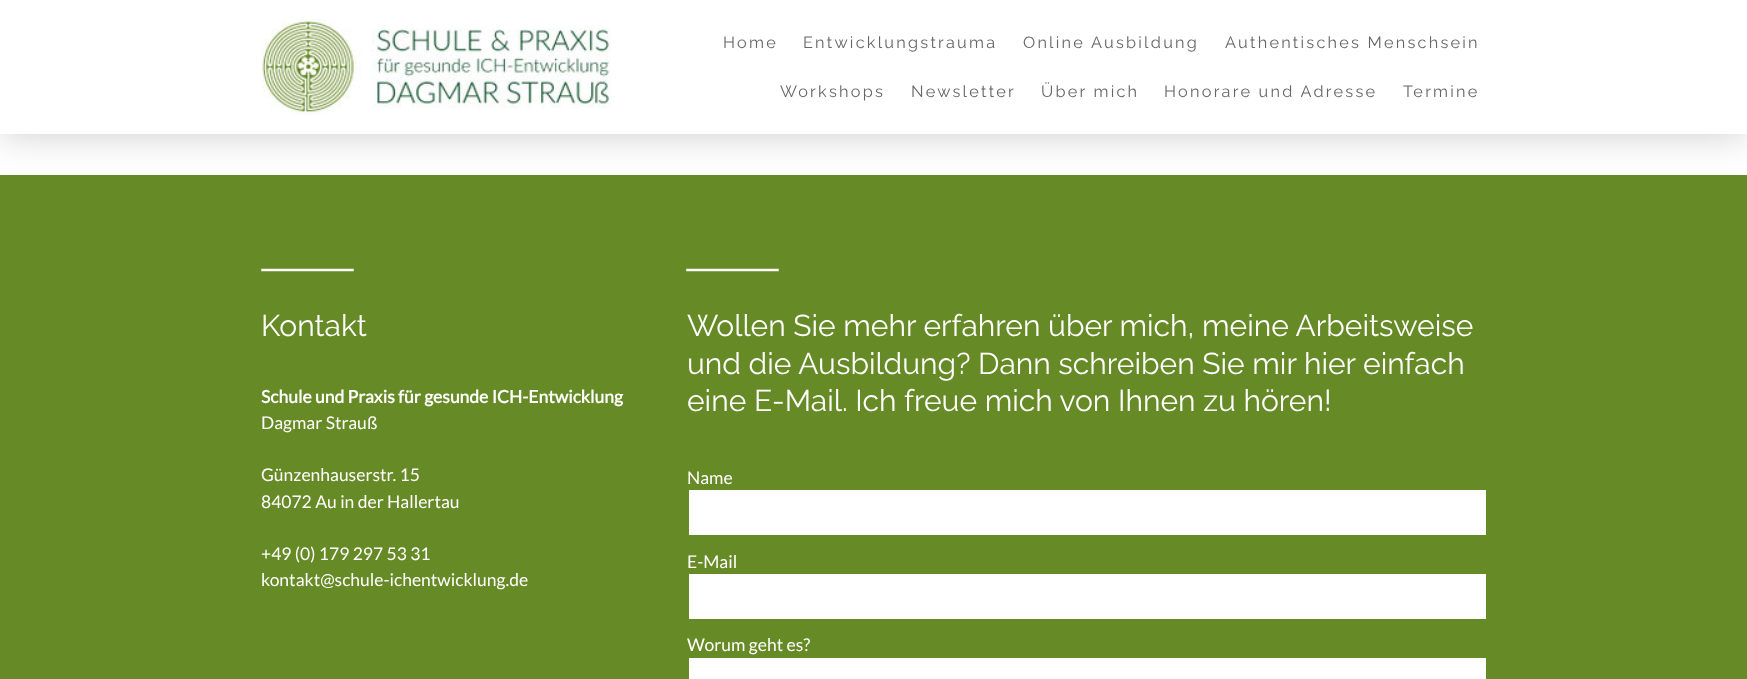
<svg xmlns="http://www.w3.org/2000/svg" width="1747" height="679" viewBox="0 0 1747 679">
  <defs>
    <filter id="blur1" x="-50%" y="-200%" width="200%" height="500%"><feGaussianBlur stdDeviation="19"/></filter>
  </defs>
  <rect width="100%" height="100%" fill="#ffffff"/>
  <rect x="0" y="175" width="1747" height="504" fill="#668a25"/>
  <rect x="0" y="0" width="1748" height="134" fill="#000000" fill-opacity="0.2" filter="url(#blur1)"/>
  <rect x="0" y="0" width="1747" height="134" fill="#ffffff"/>
  <image x="261" y="19" width="350" height="96" href="img1.png"/>
  <text x="723" y="48" font-family="Raleway" font-size="16.25" font-weight="100" letter-spacing="2.25" fill="#666666">Home</text>
  <text x="803" y="48" font-family="Raleway" font-size="16.25" font-weight="100" letter-spacing="2.25" fill="#666666">Entwicklungstrauma</text>
  <text x="1023" y="48" font-family="Raleway" font-size="16.25" font-weight="100" letter-spacing="2.25" fill="#666666">Online Ausbildung</text>
  <text x="1225" y="48" font-family="Raleway" font-size="16.25" font-weight="100" letter-spacing="2.25" fill="#666666">Authentisches Menschsein</text>
  <text x="780" y="97" font-family="Raleway" font-size="16.25" font-weight="100" letter-spacing="2.25" fill="#666666">Workshops</text>
  <text x="911" y="97" font-family="Raleway" font-size="16.25" font-weight="100" letter-spacing="2.25" fill="#666666">Newsletter</text>
  <text x="1041" y="97" font-family="Raleway" font-size="16.25" font-weight="100" letter-spacing="2.25" fill="#666666">Über mich</text>
  <text x="1164" y="97" font-family="Raleway" font-size="16.25" font-weight="100" letter-spacing="2.25" fill="#666666">Honorare und Adresse</text>
  <text x="1403" y="97" font-family="Raleway" font-size="16.25" font-weight="100" letter-spacing="2.25" fill="#666666">Termine</text>
  <image x="261" y="268" width="93" height="4" href="img2.png"/>
  <text x="261" y="336" font-family="Raleway" font-size="30" font-weight="100" fill="#ffffff">Kontakt</text>
  <text x="261" y="403" font-family="Lato" font-size="17.5" font-weight="bold" fill="#ffffff">Schule und Praxis für gesunde ICH-Entwicklung</text>
  <text x="261" y="429" font-family="Lato" font-size="17.5" fill="#ffffff">Dagmar Strauß</text>
  <text x="261" y="481" font-family="Lato" font-size="17.5" fill="#ffffff">Günzenhauserstr. 15</text>
  <text x="261" y="508" font-family="Lato" font-size="17.5" fill="#ffffff">84072 Au in der Hallertau</text>
  <text x="261" y="560" font-family="Lato" font-size="17.5" fill="#ffffff">+49 (0) 179 297 53 31</text>
  <text x="261" y="586" font-family="Lato" font-size="17.5" fill="#ffffff">kontakt@schule-ichentwicklung.de</text>
  <image x="686" y="268" width="93" height="4" href="img2.png"/>
  <text x="687" y="336" font-family="Raleway" font-size="30" font-weight="100" fill="#ffffff">Wollen Sie mehr erfahren über mich, meine Arbeitsweise</text>
  <text x="687" y="374" font-family="Raleway" font-size="30" font-weight="100" fill="#ffffff">und die Ausbildung? Dann schreiben Sie mir hier einfach</text>
  <text x="687" y="411" font-family="Raleway" font-size="30" font-weight="100" fill="#ffffff">eine E-Mail. Ich freue mich von Ihnen zu hören!</text>
  <text x="687" y="484" font-family="Lato" font-size="17.5" fill="#ffffff">Name</text>
  <rect x="689" y="490" width="797" height="45" fill="#ffffff"/>
  <text x="687" y="568" font-family="Lato" font-size="17.5" fill="#ffffff">E-Mail</text>
  <rect x="689" y="574" width="797" height="45" fill="#ffffff"/>
  <text x="687" y="651" font-family="Lato" font-size="17.5" fill="#ffffff">Worum geht es?</text>
  <rect x="689" y="658" width="797" height="21" fill="#ffffff"/>
</svg>
